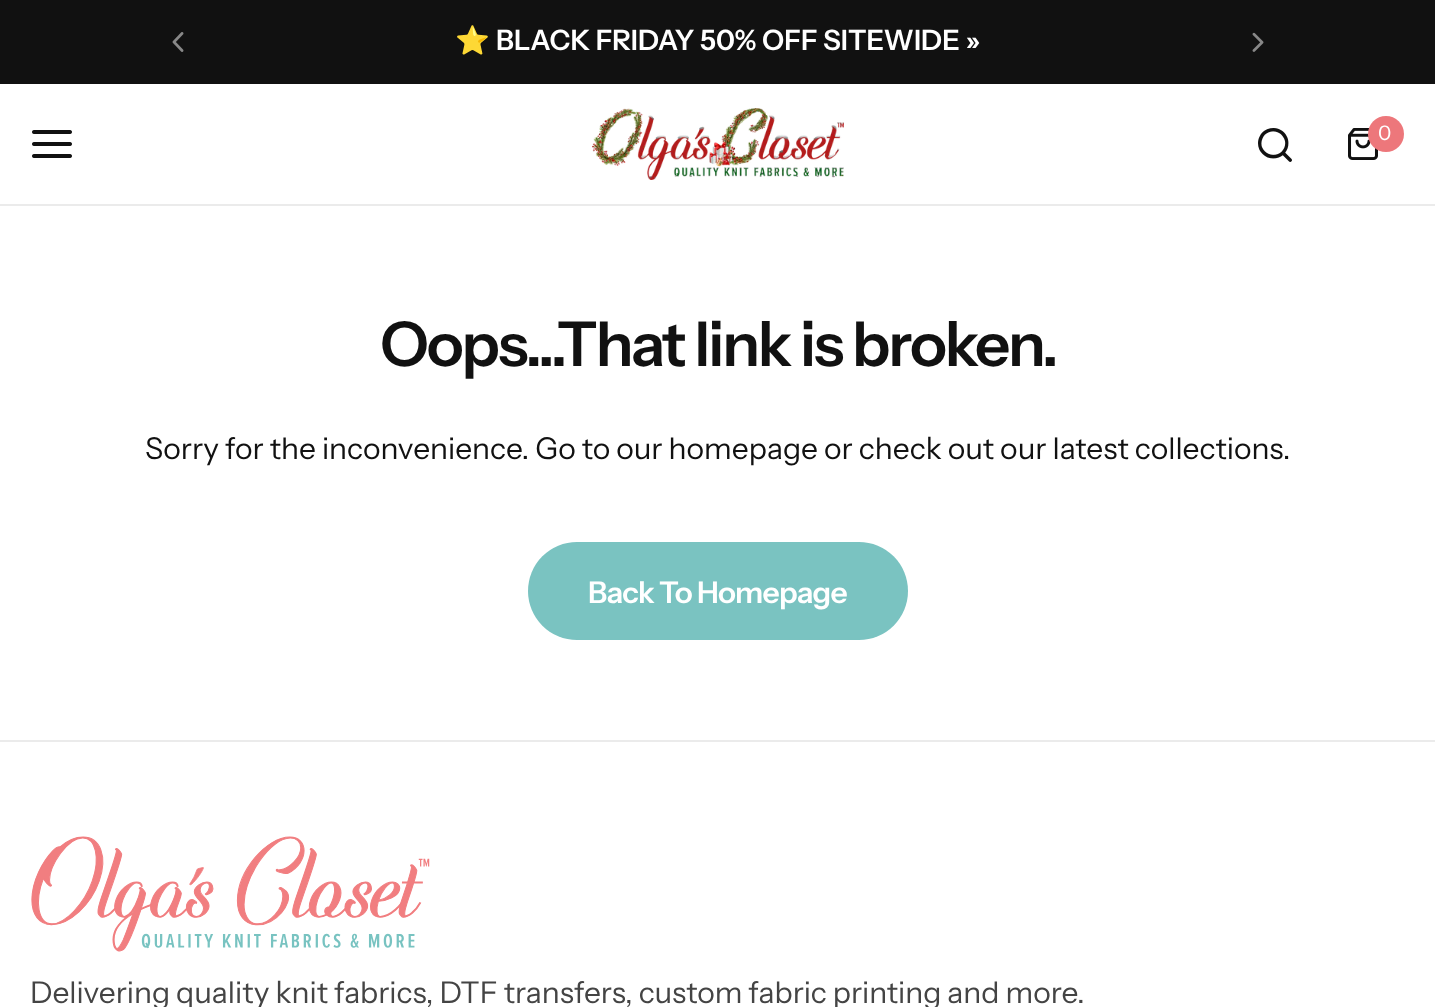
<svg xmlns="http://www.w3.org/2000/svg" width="1435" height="1007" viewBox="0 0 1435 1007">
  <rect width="100%" height="100%" fill="#ffffff"/>
  <rect x="0" y="0" width="1435" height="84" fill="#111111"/>
  <image x="172" y="32" width="12" height="20" href="img1.png"/>
  <text x="455" y="50" font-family="Noto Color Emoji" font-size="28" fill="#ffffff">⭐</text>
  <text x="496" y="50" font-family="Instrument Sans" font-size="28" font-weight="600" fill="#ffffff">BLACK FRIDAY 50% OFF SITEWIDE »</text>
  <image x="1252" y="32" width="12" height="20" href="img2.png"/>
  <rect x="0" y="204" width="1435" height="2" fill="#ebebeb"/>
  <image x="32" y="130" width="40" height="28" href="img3.png"/>
  <image x="592" y="108" width="252" height="72" href="img4.png"/>
  <image x="1258" y="128" width="34" height="34" href="img5.png"/>
  <image x="1348" y="128" width="30" height="32" href="img6.png"/>
  <circle cx="1386" cy="134" r="18" fill="#ed777b"/>
  <text x="1378" y="140" font-family="Instrument Sans" font-size="20" fill="#ffffff">0</text>
  <text x="380" y="366" font-family="Instrument Sans" font-size="61.75" font-weight="600" letter-spacing="-2.1" fill="#111111">Oops...That link is broken.</text>
  <text x="145" y="459" font-family="Instrument Sans" font-size="30" fill="#111111">Sorry for the inconvenience. Go to our homepage or check out our latest collections.</text>
  <rect x="528" y="542" width="380" height="98" rx="49" fill="#7ac3c1"/>
  <text x="588" y="603" font-family="Instrument Sans" font-size="30" font-weight="600" letter-spacing="-0.75" fill="#ffffff">Back To Homepage</text>
  <rect x="0" y="740" width="1435" height="2" fill="#ebebeb"/>
  <image x="31" y="836" width="399" height="116" href="img7.png"/>
  <text x="30" y="1003" font-family="Instrument Sans" font-size="30" fill="#444444">Delivering quality knit fabrics, DTF transfers, custom fabric printing and more.</text>
</svg>
